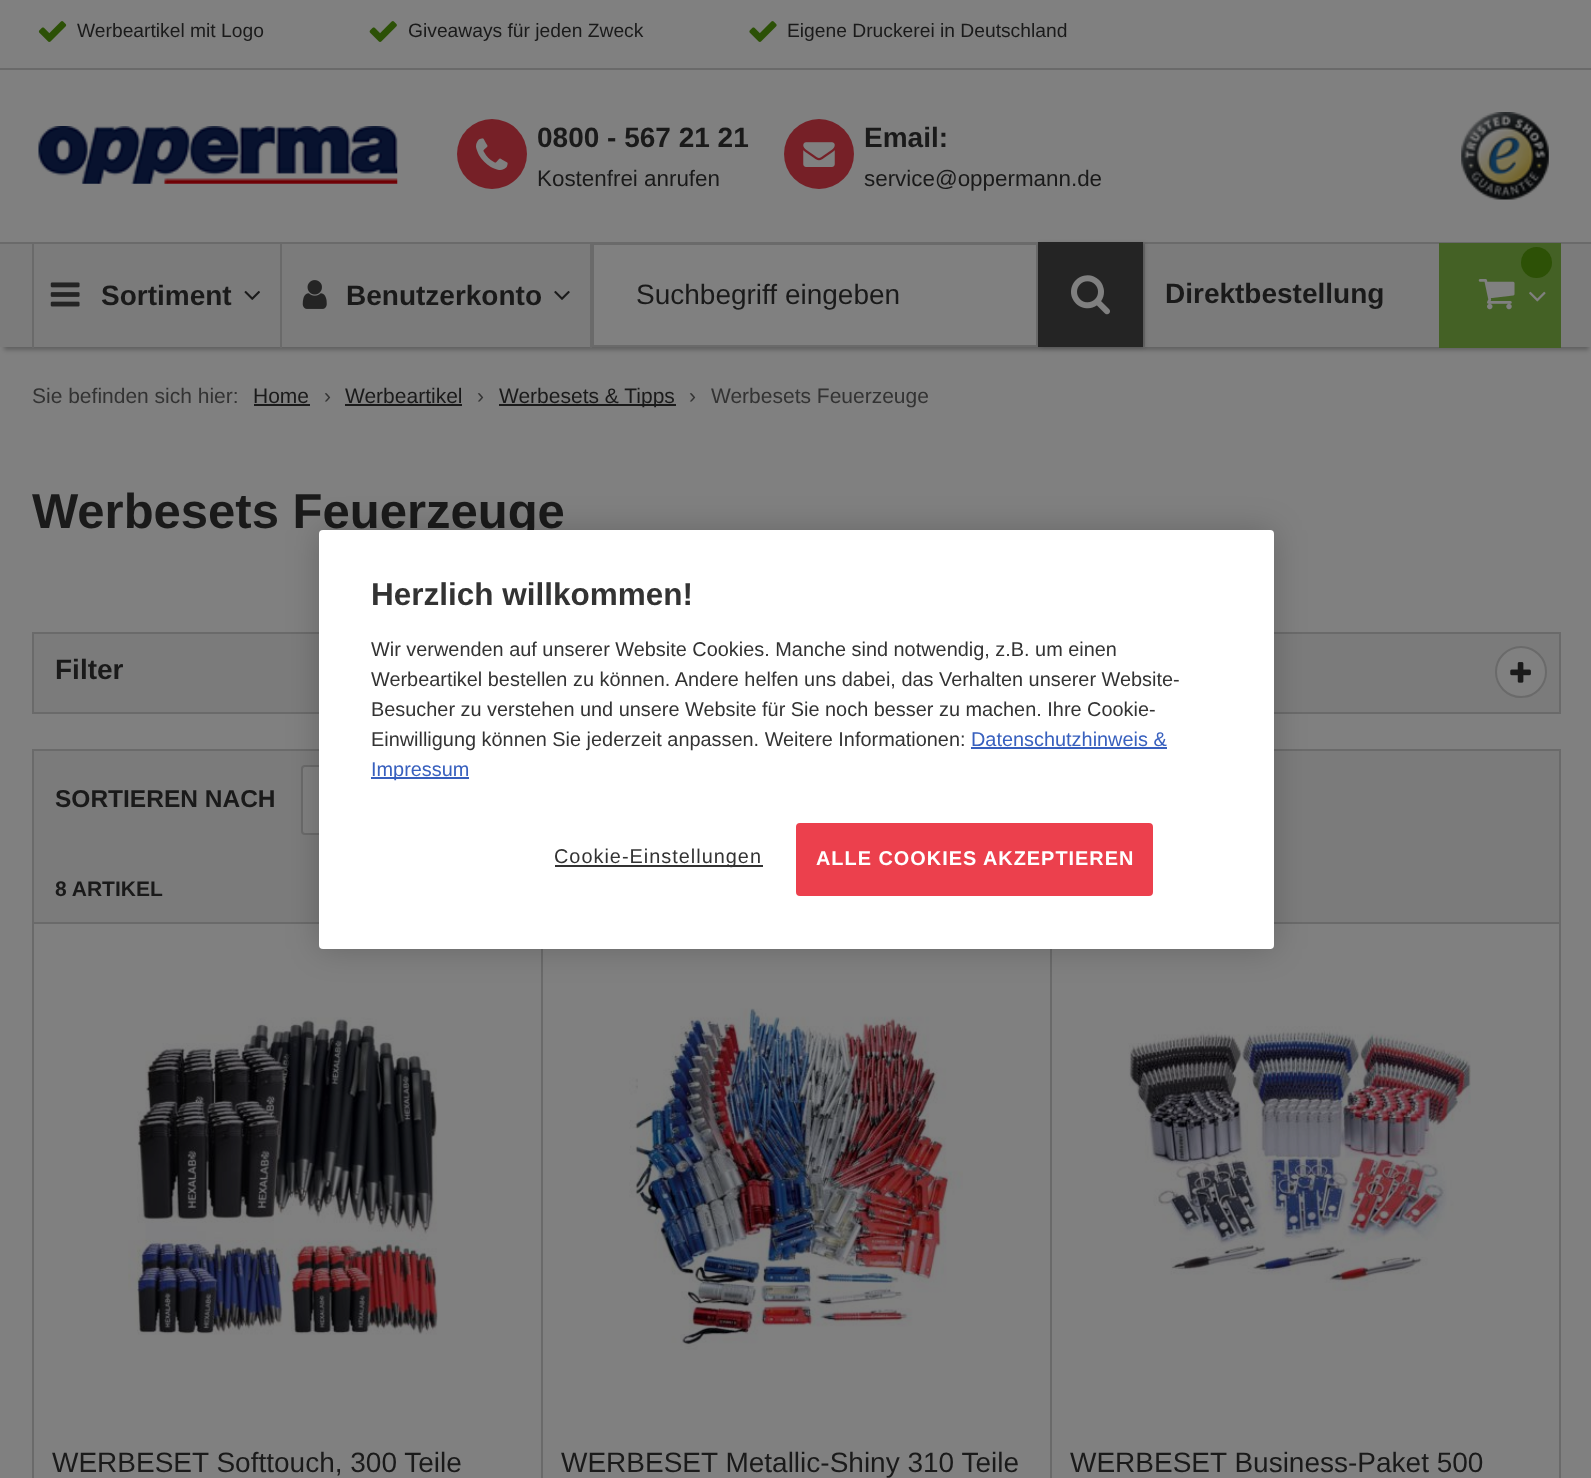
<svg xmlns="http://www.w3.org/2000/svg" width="1591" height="1478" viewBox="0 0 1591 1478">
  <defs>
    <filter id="blur1" x="-50%" y="-200%" width="200%" height="500%"><feGaussianBlur stdDeviation="2"/></filter>
    <filter id="blur2" x="-50%" y="-200%" width="200%" height="500%"><feGaussianBlur stdDeviation="16"/></filter>
  </defs>
  <rect width="100%" height="100%" fill="#808080"/>
  <rect x="0" y="68" width="1591" height="2" fill="#6a6a6a"/>
  <image x="38" y="21" width="29" height="21" href="img1.png"/>
  <text x="77" y="37" font-family="Liberation Sans" font-size="19.25" fill="#1a1a1a">Werbeartikel mit Logo</text>
  <image x="369" y="21" width="28" height="21" href="img2.png"/>
  <text x="408" y="37" font-family="Liberation Sans" font-size="19.25" fill="#1a1a1a">Giveaways für jeden Zweck</text>
  <image x="749" y="21" width="28" height="21" href="img3.png"/>
  <text x="787" y="37" font-family="Liberation Sans" font-size="19.25" fill="#1a1a1a">Eigene Druckerei in Deutschland</text>
  <image x="38" y="126" width="360" height="58" href="img4.png"/>
  <circle cx="492" cy="154" r="35" fill="#762027"/>
  <image x="476" y="138" width="32" height="32" href="img5.png"/>
  <text x="537" y="147" font-family="Liberation Sans" font-size="28" font-weight="bold" fill="#1a1a1a">0800 - 567 21 21</text>
  <text x="537" y="186" font-family="Liberation Sans" font-size="22.4" fill="#1a1a1a">Kostenfrei anrufen</text>
  <circle cx="819" cy="154" r="35" fill="#762027"/>
  <image x="803" y="142" width="32" height="25" href="img6.png"/>
  <text x="864" y="147" font-family="Liberation Sans" font-size="28" font-weight="bold" fill="#1a1a1a">Email:</text>
  <text x="864" y="186" font-family="Liberation Sans" font-size="22.4" fill="#1a1a1a">service@oppermann.de</text>
  <image x="1461" y="112" width="88" height="88" href="img7.png"/>
  <rect x="4" y="252" width="1585" height="98" fill="#000000" fill-opacity="0.25" filter="url(#blur1)"/>
  <rect x="0" y="244" width="1591" height="103" fill="#7b7b7b"/>
  <rect x="0" y="242" width="1591" height="2" fill="#6a6a6a"/>
  <rect x="280" y="243" width="2" height="105" fill="#6a6a6a"/>
  <rect x="32" y="243" width="2" height="105" fill="#6a6a6a"/>
  <image x="50" y="282" width="30" height="25" href="img8.png"/>
  <text x="101" y="305" font-family="Liberation Sans" font-size="28" font-weight="bold" fill="#1a1a1a">Sortiment</text>
  <image x="244" y="290" width="16" height="10" href="img9.png"/>
  <rect x="590" y="243" width="2" height="105" fill="#6a6a6a"/>
  <image x="302" y="280" width="25" height="29" href="img10.png"/>
  <text x="346" y="305" font-family="Liberation Sans" font-size="28" font-weight="bold" fill="#1a1a1a">Benutzerkonto</text>
  <image x="554" y="290" width="16" height="10" href="img11.png"/>
  <rect x="1143" y="243" width="2" height="105" fill="#6a6a6a"/>
  <rect x="593" y="244" width="444" height="102" fill="#808080" stroke="#6a6a6a" stroke-width="2"/>
  <text x="636" y="304" font-family="Liberation Sans" font-size="28" fill="#1a1a1a">Suchbegriff eingeben</text>
  <rect x="1040" y="243" width="105" height="105" fill="#000000" fill-opacity="0.15" filter="url(#blur1)"/>
  <rect x="1038" y="242" width="105" height="105" fill="#242424"/>
  <image x="1071" y="275" width="39" height="40" href="img12.png"/>
  <text x="1165" y="303" font-family="Liberation Sans" font-size="28" font-weight="bold" fill="#1a1a1a">Direktbestellung</text>
  <rect x="1439" y="243" width="122" height="105" fill="#446125"/>
  <circle cx="1536.5" cy="262.5" r="15.5" fill="#2d5106"/>
  <image x="1478" y="279" width="37" height="31" href="img13.png"/>
  <image x="1529" y="291" width="17" height="11" href="img14.png"/>
  <text x="32" y="403" font-family="Liberation Sans" font-size="21" fill="#333333">Sie befinden sich hier:</text>
  <text x="253" y="403" font-family="Liberation Sans" font-size="21" fill="#1a1a1a">Home</text>
  <rect x="254" y="404" width="56" height="2" fill="#1a1a1a"/>
  <text x="324" y="403" font-family="Liberation Sans" font-size="21" fill="#333333">›</text>
  <text x="345" y="403" font-family="Liberation Sans" font-size="21" fill="#1a1a1a">Werbeartikel</text>
  <rect x="345" y="404" width="117" height="2" fill="#1a1a1a"/>
  <text x="477" y="403" font-family="Liberation Sans" font-size="21" fill="#333333">›</text>
  <rect x="499" y="404" width="177" height="2" fill="#1a1a1a"/>
  <text x="499" y="403" font-family="Liberation Sans" font-size="21" fill="#1a1a1a">Werbesets &amp; Tipps</text>
  <text x="689" y="403" font-family="Liberation Sans" font-size="21" fill="#333333">›</text>
  <text x="711" y="403" font-family="Liberation Sans" font-size="21" fill="#333333">Werbesets Feuerzeuge</text>
  <text x="32" y="528" font-family="Liberation Sans" font-size="49" font-weight="bold" fill="#1a1a1a">Werbesets Feuerzeuge</text>
  <rect x="33" y="633" width="1527" height="80" fill="#7b7b7b" stroke="#6a6a6a" stroke-width="2"/>
  <text x="55" y="679" font-family="Liberation Sans" font-size="28" font-weight="bold" fill="#1a1a1a">Filter</text>
  <circle cx="1521" cy="672" r="25" fill="#808080" stroke="#6a6a6a" stroke-width="2"/>
  <image x="1510" y="662" width="21" height="21" href="img15.png"/>
  <rect x="33" y="750" width="1527" height="173" fill="#7b7b7b" stroke="#6a6a6a" stroke-width="2"/>
  <text x="55" y="807" font-family="Liberation Sans" font-size="24.5" font-weight="bold" fill="#1a1a1a">SORTIEREN NACH</text>
  <rect x="302" y="766" width="297" height="68" rx="3" fill="#808080" stroke="#6a6a6a" stroke-width="2"/>
  <text x="55" y="896" font-family="Liberation Sans" font-size="21" font-weight="bold" fill="#1a1a1a">8 ARTIKEL</text>
  <rect x="32" y="924" width="2" height="554" fill="#6a6a6a"/>
  <rect x="541" y="949" width="2" height="529" fill="#6a6a6a"/>
  <image x="128" y="1017" width="310" height="318" href="img16.png"/>
  <text x="52" y="1472" font-family="Liberation Sans" font-size="28" fill="#1a1a1a">WERBESET Softtouch, 300 Teile</text>
  <rect x="1050" y="949" width="2" height="529" fill="#6a6a6a"/>
  <image x="629" y="1008" width="334" height="342" href="img17.png"/>
  <text x="561" y="1472" font-family="Liberation Sans" font-size="28" fill="#1a1a1a">WERBESET Metallic-Shiny 310 Teile</text>
  <rect x="1559" y="924" width="2" height="554" fill="#6a6a6a"/>
  <image x="1128" y="1026" width="343" height="265" href="img18.png"/>
  <text x="1070" y="1472" font-family="Liberation Sans" font-size="28" fill="#1a1a1a">WERBESET Business-Paket 500</text>
  <rect x="319" y="530" width="955" height="419" rx="4" fill="#000000" fill-opacity="0.2" filter="url(#blur2)"/>
  <rect x="319" y="530" width="955" height="419" rx="4" fill="#ffffff"/>
  <text x="371" y="605" font-family="Liberation Sans" font-size="31.5" font-weight="bold" fill="#333333">Herzlich willkommen!</text>
  <text x="371" y="656" font-family="Liberation Sans" font-size="19.9" fill="#333333">Wir verwenden auf unserer Website Cookies. Manche sind notwendig, z.B. um einen</text>
  <text x="371" y="686" font-family="Liberation Sans" font-size="19.9" fill="#333333">Werbeartikel bestellen zu können. Andere helfen uns dabei, das Verhalten unserer Website-</text>
  <text x="371" y="716" font-family="Liberation Sans" font-size="19.9" fill="#333333">Besucher zu verstehen und unsere Website für Sie noch besser zu machen. Ihre Cookie-</text>
  <text x="371" y="746" font-family="Liberation Sans" font-size="19.9" fill="#333333">Einwilligung können Sie jederzeit anpassen. Weitere Informationen:</text>
  <text x="971" y="746" font-family="Liberation Sans" font-size="19.9" fill="#3860be">Datenschutzhinweis &amp;</text>
  <rect x="971" y="747" width="196" height="2" fill="#3860be"/>
  <rect x="371" y="777" width="98" height="2" fill="#3860be"/>
  <text x="371" y="776" font-family="Liberation Sans" font-size="19.9" fill="#3860be">Impressum</text>
  <rect x="555" y="865" width="208" height="2" fill="#333333"/>
  <text x="554" y="863" font-family="Liberation Sans" font-size="19.9" letter-spacing="1" fill="#333333">Cookie-Einstellungen</text>
  <rect x="797" y="824" width="355" height="71" rx="3" fill="#ec404d" stroke="#ec404d" stroke-width="2"/>
  <text x="816" y="865" font-family="Liberation Sans" font-size="19.9" font-weight="bold" letter-spacing="1" fill="#ffffff">ALLE COOKIES AKZEPTIEREN</text>
</svg>
